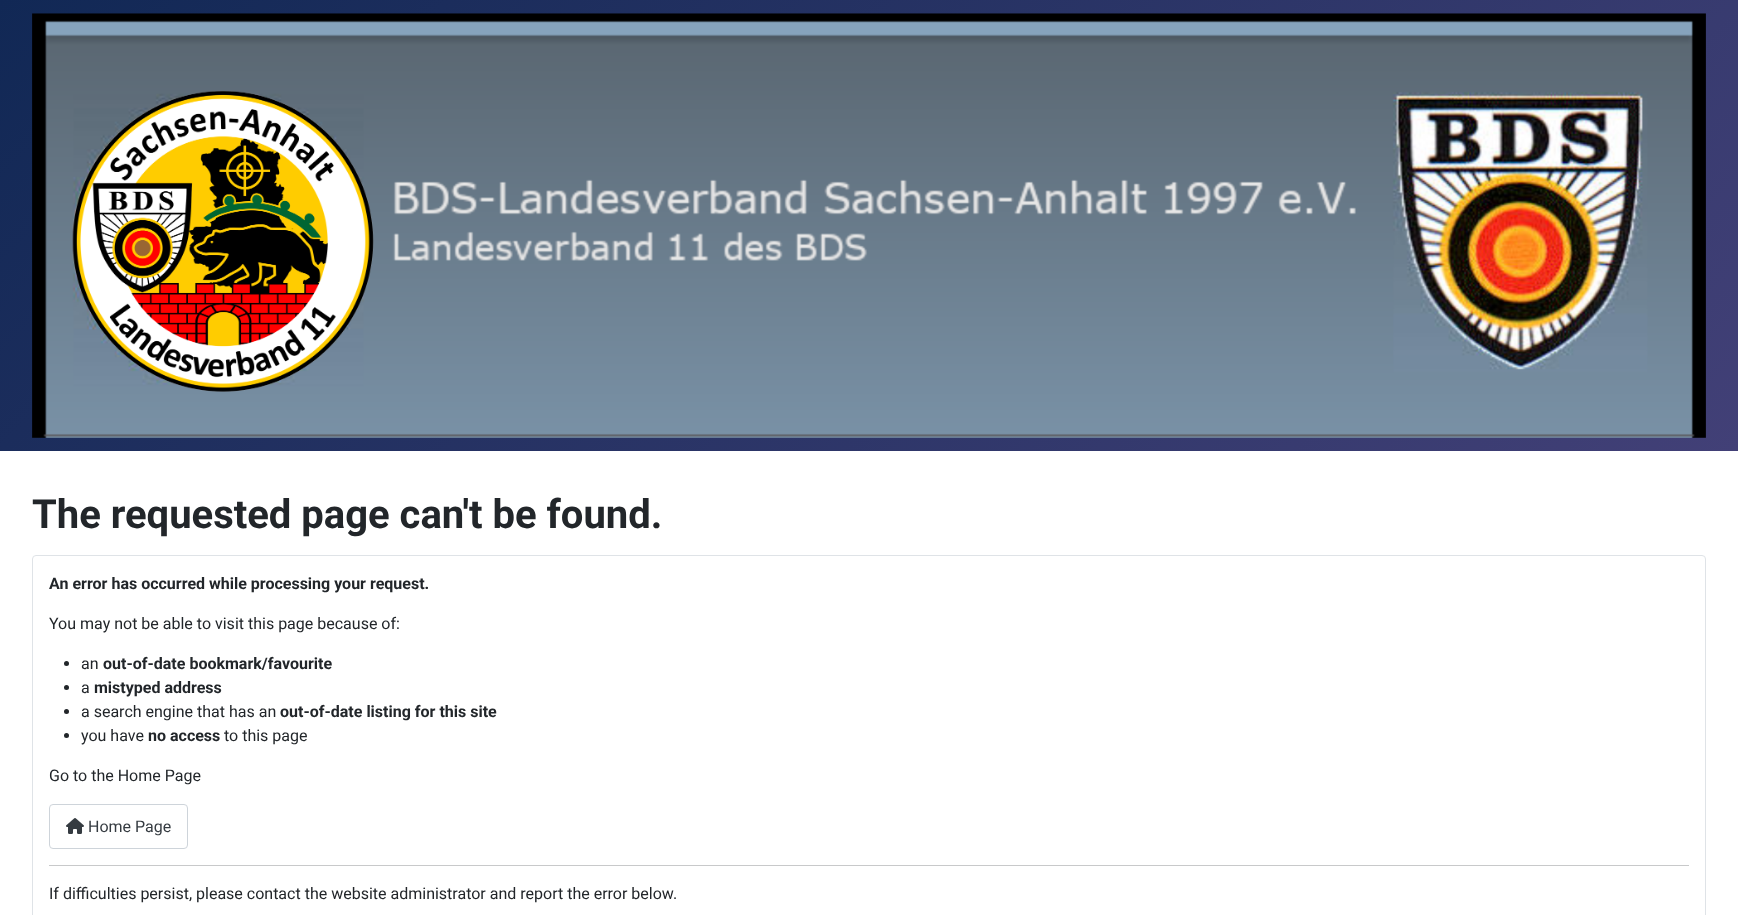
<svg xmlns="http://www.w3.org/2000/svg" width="1738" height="915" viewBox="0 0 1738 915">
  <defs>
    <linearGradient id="g1" gradientUnits="userSpaceOnUse" x1="322" y1="-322" x2="1416" y2="773"><stop offset="0" stop-color="#112855"/><stop offset="1" stop-color="#424077"/></linearGradient>
  </defs>
  <rect width="100%" height="100%" fill="#ffffff"/>
  <rect x="0" y="0" width="1738" height="451" fill="url(#g1)"/>
  <image x="32" y="13" width="1674" height="425" href="img1.png"/>
  <text x="32" y="528" font-family="Roboto" font-size="40" font-weight="bold" fill="#22262a">The requested page can't be found.</text>
  <rect x="32.5" y="555.5" width="1673" height="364" rx="3.5" fill="none" stroke="#dfe3e7"/>
  <text x="49" y="589" font-family="Roboto" font-size="16" font-weight="bold" fill="#22262a">An error has occurred while processing your request.</text>
  <text x="49" y="629" font-family="Roboto" font-size="16" fill="#22262a">You may not be able to visit this page because of:</text>
  <circle cx="66.5" cy="663.5" r="2.5" fill="#22262a"/>
  <text x="81" y="669" font-family="Roboto" font-size="16" fill="#22262a">an</text>
  <text x="103" y="669" font-family="Roboto" font-size="16" font-weight="bold" fill="#22262a">out-of-date bookmark/favourite</text>
  <circle cx="66.5" cy="687.5" r="2.5" fill="#22262a"/>
  <text x="81" y="693" font-family="Roboto" font-size="16" fill="#22262a">a</text>
  <text x="94" y="693" font-family="Roboto" font-size="16" font-weight="bold" fill="#22262a">mistyped address</text>
  <circle cx="66.5" cy="711.5" r="2.5" fill="#22262a"/>
  <text x="81" y="717" font-family="Roboto" font-size="16" fill="#22262a">a search engine that has an</text>
  <text x="280" y="717" font-family="Roboto" font-size="16" font-weight="bold" fill="#22262a">out-of-date listing for this site</text>
  <circle cx="66.5" cy="735.5" r="2.5" fill="#22262a"/>
  <text x="81" y="741" font-family="Roboto" font-size="16" fill="#22262a">you have</text>
  <text x="148" y="741" font-family="Roboto" font-size="16" font-weight="bold" fill="#22262a">no access</text>
  <text x="224" y="741" font-family="Roboto" font-size="16" fill="#22262a">to this page</text>
  <text x="49" y="781" font-family="Roboto" font-size="16" fill="#22262a">Go to the Home Page</text>
  <rect x="49.5" y="804.5" width="138" height="44" rx="3.5" fill="none" stroke="#ced4da"/>
  <image x="66" y="818" width="18" height="16" href="img2.png"/>
  <text x="88" y="832" font-family="Roboto" font-size="16" fill="#353b41">Home Page</text>
  <rect x="49" y="865" width="1640" height="1" fill="#c8c9ca"/>
  <text x="49" y="899" font-family="Roboto" font-size="16" fill="#22262a">If difficulties persist, please contact the website administrator and report the error below.</text>
</svg>
